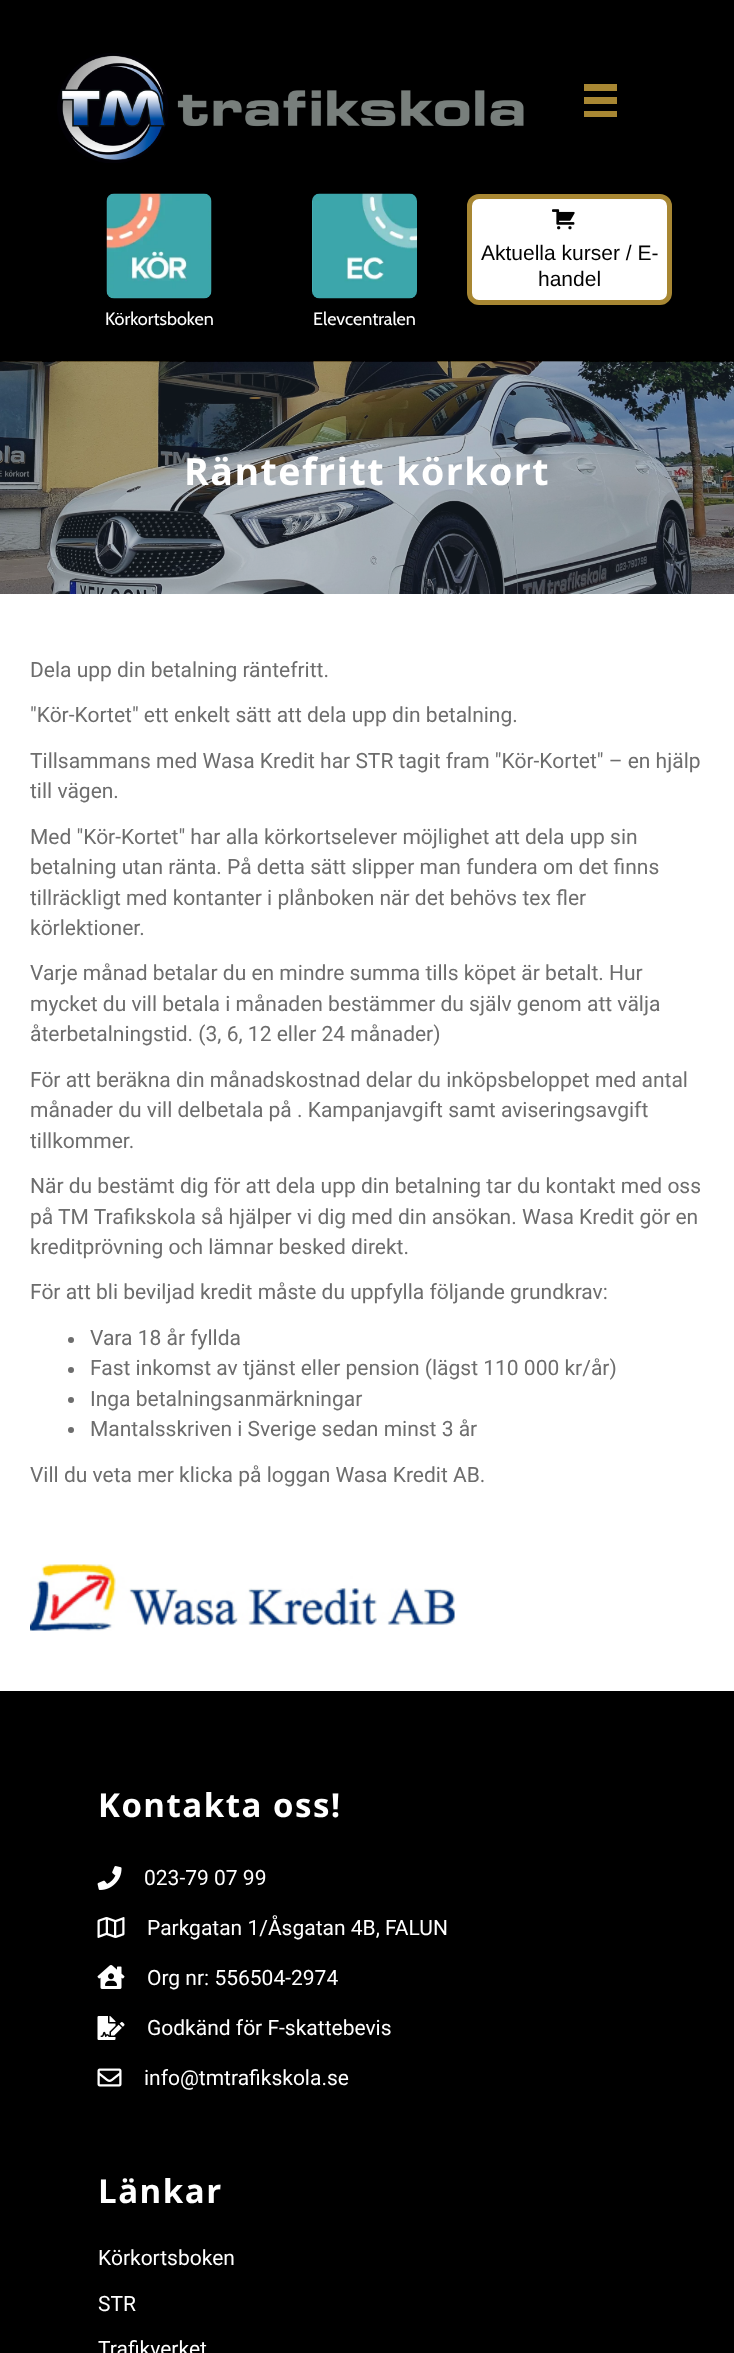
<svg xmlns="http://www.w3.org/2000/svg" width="734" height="2353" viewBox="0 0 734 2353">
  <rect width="100%" height="100%" fill="#ffffff"/>
  <rect x="0" y="0" width="734" height="362" fill="#000000"/>
  <image x="57" y="53" width="467" height="110" href="img1.png"/>
  <rect x="584" y="84" width="33" height="7" fill="#a88733"/>
  <rect x="584" y="97" width="33" height="7" fill="#a88733"/>
  <rect x="584" y="111" width="33" height="6" fill="#a88733"/>
  <rect x="469.5" y="196.5" width="200" height="106" rx="9.5" fill="#ffffff" stroke="#a88733" stroke-width="5"/>
  <image x="552" y="209" width="23" height="21" href="img2.png"/>
  <text x="481" y="260" font-family="Liberation Sans" font-size="21" fill="#020202">Aktuella kurser / E-</text>
  <text x="538" y="286" font-family="Liberation Sans" font-size="21" fill="#020202">handel</text>
  <image x="106" y="193" width="106" height="106" href="img3.png"/>
  <text x="105" y="325" font-family="Cabin" font-size="18" fill="#ffffff">Körkortsboken</text>
  <image x="312" y="193" width="105" height="106" href="img4.png"/>
  <text x="313" y="325" font-family="Cabin" font-size="18" fill="#ffffff">Elevcentralen</text>
  <image x="0" y="361" width="734" height="233" href="img5.png"/>
  <text x="184" y="485" font-family="Open Sans" font-size="37.5" font-weight="bold" letter-spacing="1.5" fill="#ffffff">Räntefritt körkort</text>
  <text x="30" y="677" font-family="Roboto" font-size="21" fill="#6d6d6d">Dela upp din betalning räntefritt.</text>
  <text x="30" y="722" font-family="Roboto" font-size="21" fill="#6d6d6d">"Kör-Kortet" ett enkelt sätt att dela upp din betalning.</text>
  <text x="30" y="768" font-family="Roboto" font-size="21" fill="#6d6d6d">Tillsammans med Wasa Kredit har STR tagit fram "Kör-Kortet" – en hjälp</text>
  <text x="30" y="798" font-family="Roboto" font-size="21" fill="#6d6d6d">till vägen.</text>
  <text x="30" y="844" font-family="Roboto" font-size="21" fill="#6d6d6d">Med "Kör-Kortet" har alla körkortselever möjlighet att dela upp sin</text>
  <text x="30" y="874" font-family="Roboto" font-size="21" fill="#6d6d6d">betalning utan ränta. På detta sätt slipper man fundera om det finns</text>
  <text x="30" y="905" font-family="Roboto" font-size="21" fill="#6d6d6d">tillräckligt med kontanter i plånboken när det behövs tex fler</text>
  <text x="30" y="935" font-family="Roboto" font-size="21" fill="#6d6d6d">körlektioner.</text>
  <text x="30" y="980" font-family="Roboto" font-size="21" fill="#6d6d6d">Varje månad betalar du en mindre summa tills köpet är betalt. Hur</text>
  <text x="30" y="1011" font-family="Roboto" font-size="21" fill="#6d6d6d">mycket du vill betala i månaden bestämmer du själv genom att välja</text>
  <text x="30" y="1041" font-family="Roboto" font-size="21" fill="#6d6d6d">återbetalningstid. (3, 6, 12 eller 24 månader)</text>
  <text x="30" y="1087" font-family="Roboto" font-size="21" fill="#6d6d6d">För att beräkna din månadskostnad delar du inköpsbeloppet med antal</text>
  <text x="30" y="1117" font-family="Roboto" font-size="21" fill="#6d6d6d">månader du vill delbetala på . Kampanjavgift samt aviseringsavgift</text>
  <text x="30" y="1148" font-family="Roboto" font-size="21" fill="#6d6d6d">tillkommer.</text>
  <text x="30" y="1193" font-family="Roboto" font-size="21" fill="#6d6d6d">När du bestämt dig för att dela upp din betalning tar du kontakt med oss</text>
  <text x="30" y="1224" font-family="Roboto" font-size="21" fill="#6d6d6d">på TM Trafikskola så hjälper vi dig med din ansökan. Wasa Kredit gör en</text>
  <text x="30" y="1254" font-family="Roboto" font-size="21" fill="#6d6d6d">kreditprövning och lämnar besked direkt.</text>
  <text x="30" y="1299" font-family="Roboto" font-size="21" fill="#6d6d6d">För att bli beviljad kredit måste du uppfylla följande grundkrav:</text>
  <circle cx="71" cy="1340" r="3" fill="#6d6d6d"/>
  <text x="90" y="1345" font-family="Roboto" font-size="21" fill="#6d6d6d">Vara 18 år fyllda</text>
  <circle cx="71" cy="1370" r="3" fill="#6d6d6d"/>
  <text x="90" y="1375" font-family="Roboto" font-size="21" fill="#6d6d6d">Fast inkomst av tjänst eller pension (lägst 110 000 kr/år)</text>
  <circle cx="71" cy="1400" r="3" fill="#6d6d6d"/>
  <text x="90" y="1406" font-family="Roboto" font-size="21" fill="#6d6d6d">Inga betalningsanmärkningar</text>
  <circle cx="71" cy="1430" r="3" fill="#6d6d6d"/>
  <text x="90" y="1436" font-family="Roboto" font-size="21" fill="#6d6d6d">Mantalsskriven i Sverige sedan minst 3 år</text>
  <text x="30" y="1482" font-family="Roboto" font-size="21" fill="#6d6d6d">Vill du veta mer klicka på loggan Wasa Kredit AB.</text>
  <image x="30" y="1564" width="425" height="67" href="img6.png"/>
  <rect x="0" y="1691" width="734" height="662" fill="#000000"/>
  <text x="98" y="1817" font-family="Open Sans" font-size="33" font-weight="bold" letter-spacing="1.5" fill="#ffffff">Kontakta oss!</text>
  <image x="97" y="1866" width="25" height="24" href="img7.png"/>
  <text x="144" y="1885" font-family="Roboto" font-size="21" fill="#ffffff">023-79 07 99</text>
  <image x="97" y="1917" width="28" height="21" href="img8.png"/>
  <text x="147" y="1935" font-family="Roboto" font-size="21" fill="#ffffff">Parkgatan 1/Åsgatan 4B, FALUN</text>
  <image x="97" y="1965" width="28" height="24" href="img9.png"/>
  <text x="147" y="1985" font-family="Roboto" font-size="21" fill="#ffffff">Org nr: 556504-2974</text>
  <image x="97" y="2016" width="28" height="24" href="img10.png"/>
  <text x="147" y="2035" font-family="Roboto" font-size="21" fill="#ffffff">Godkänd för F-skattebevis</text>
  <image x="97" y="2068" width="25" height="19" href="img11.png"/>
  <text x="144" y="2085" font-family="Roboto" font-size="21" fill="#ffffff">info@tmtrafikskola.se</text>
  <text x="98" y="2203" font-family="Open Sans" font-size="33" font-weight="bold" letter-spacing="1.5" fill="#ffffff">Länkar</text>
  <text x="98" y="2265" font-family="Roboto" font-size="21" fill="#ffffff">Körkortsboken</text>
  <text x="98" y="2311" font-family="Roboto" font-size="21" fill="#ffffff">STR</text>
  <text x="98" y="2356" font-family="Roboto" font-size="21" fill="#ffffff">Trafikverket</text>
</svg>
